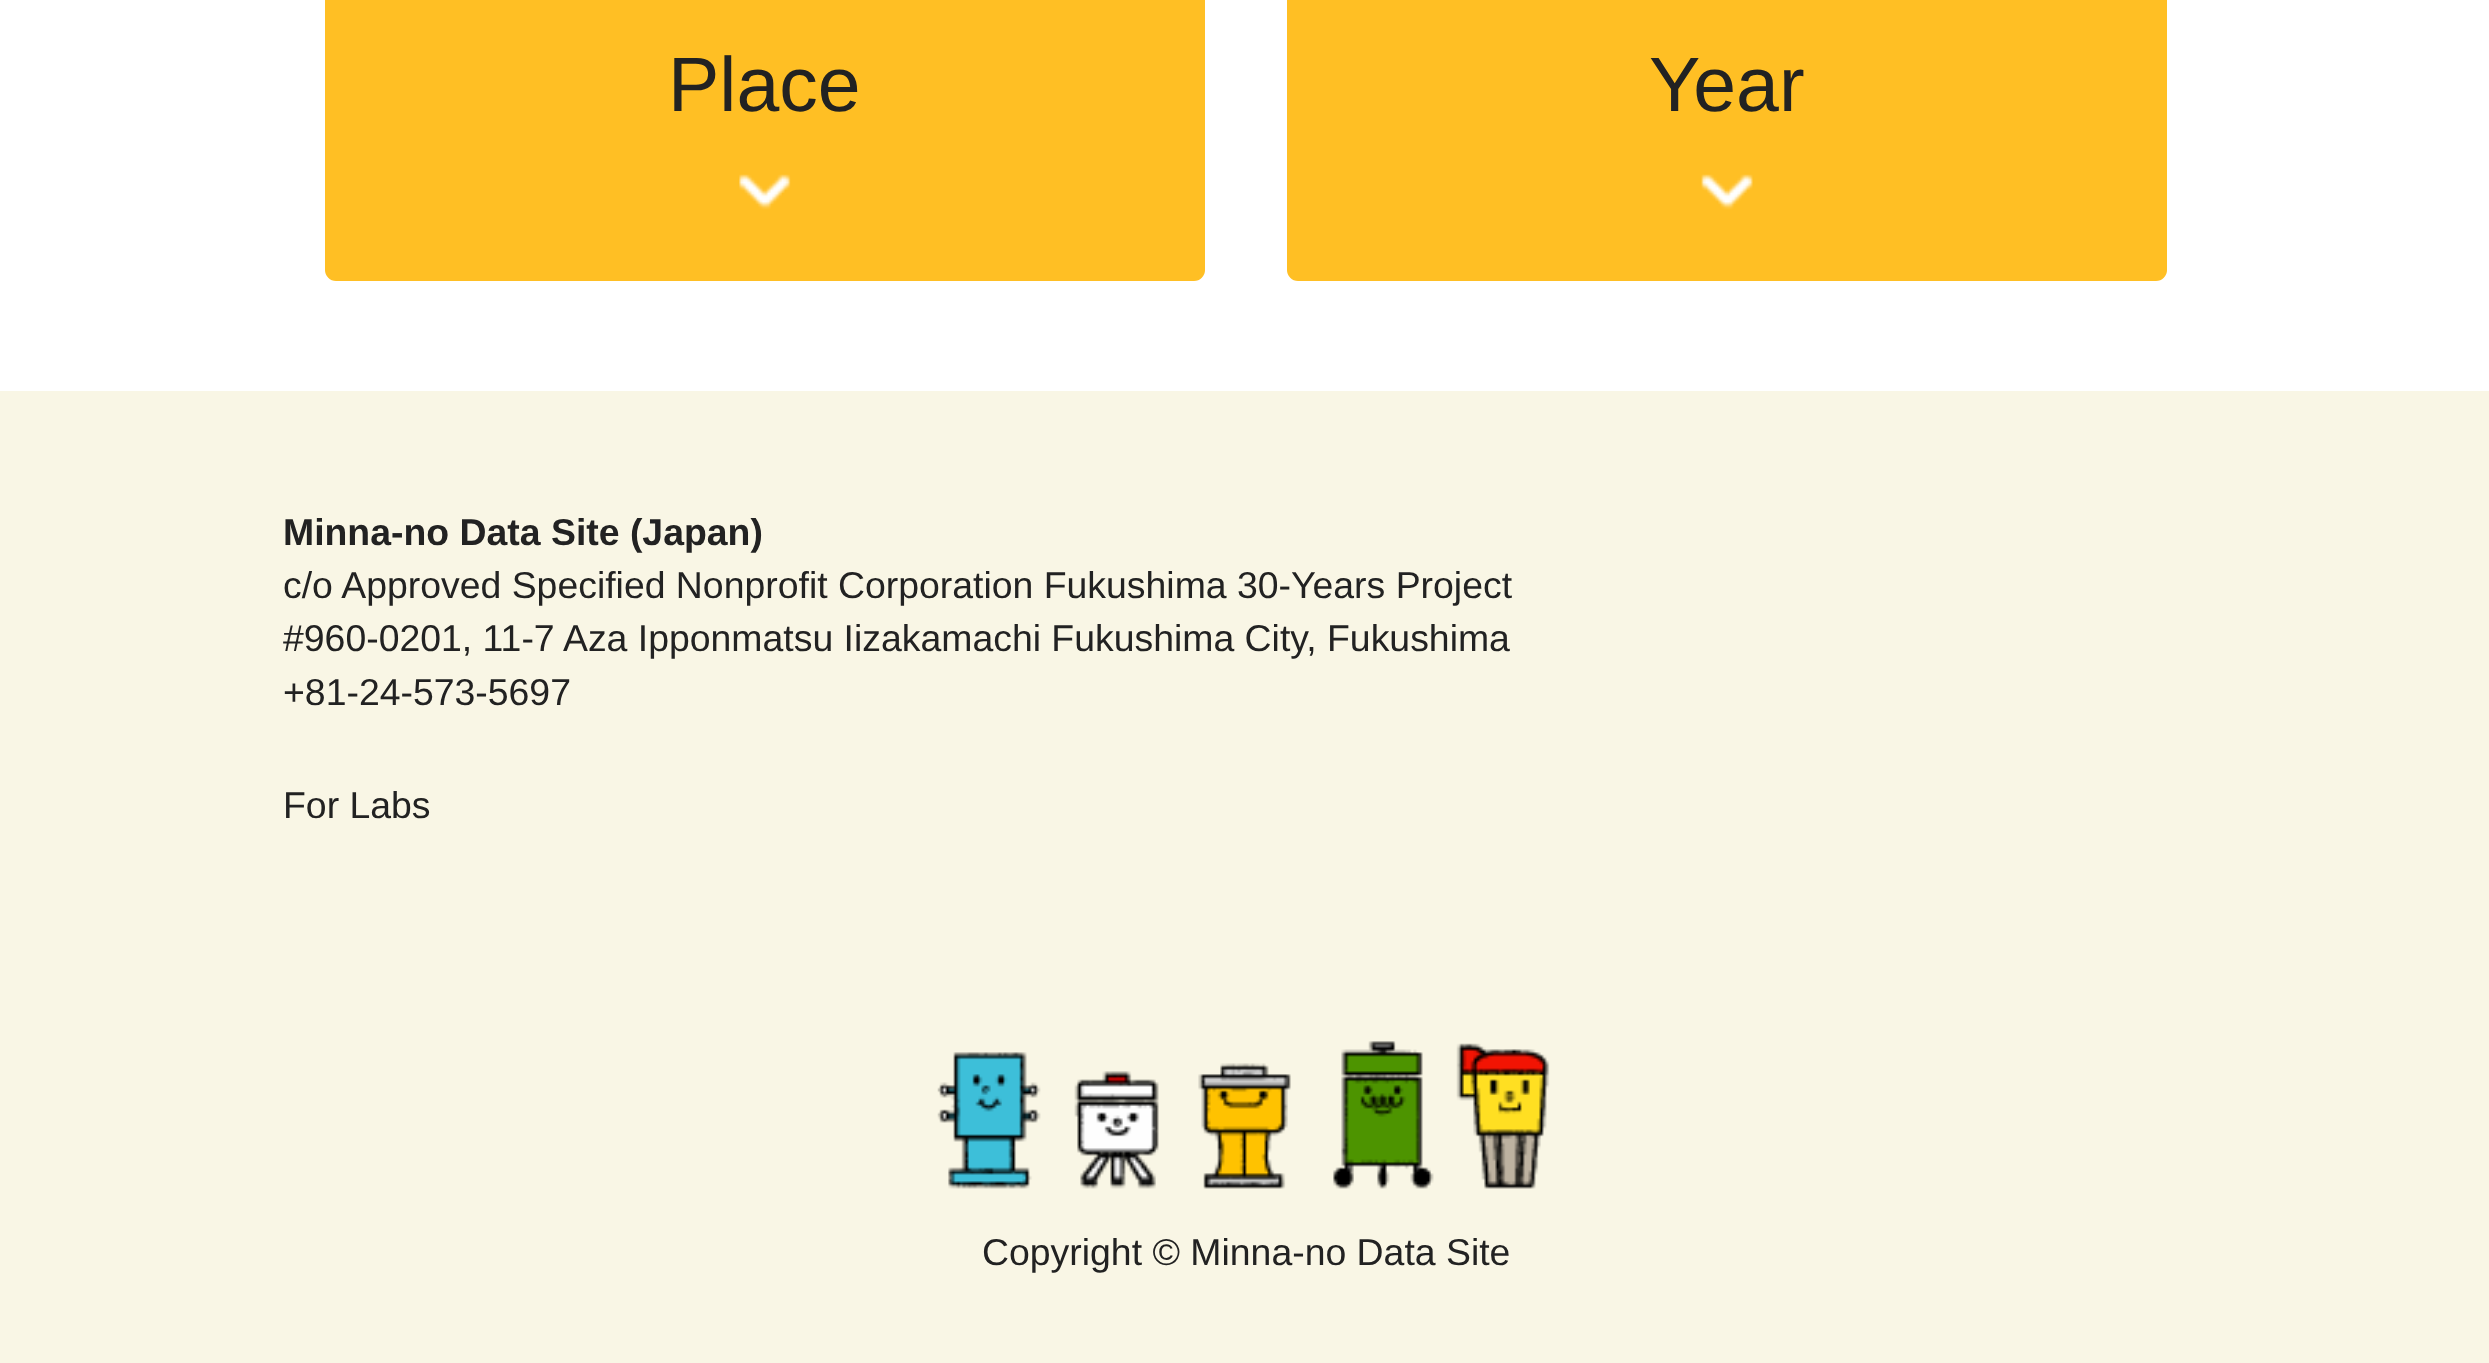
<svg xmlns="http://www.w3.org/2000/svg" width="2489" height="1363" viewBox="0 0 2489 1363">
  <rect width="100%" height="100%" fill="#ffffff"/>
  <rect x="325" y="-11" width="880" height="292" rx="11" fill="#ffbf24"/>
  <text x="668" y="111" font-family="Liberation Sans" font-size="77" fill="#222222">Place</text>
  <image x="739" y="174" width="52" height="36" href="img1.png"/>
  <rect x="1287" y="-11" width="880" height="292" rx="11" fill="#ffbf24"/>
  <text x="1649" y="111" font-family="Liberation Sans" font-size="77" fill="#222222">Year</text>
  <image x="1701" y="174" width="52" height="36" href="img2.png"/>
  <rect x="0" y="391" width="2489" height="972" fill="#f9f6e5"/>
  <text x="283" y="545" font-family="Liberation Sans" font-size="37.4" font-weight="bold" fill="#222222">Minna-no Data Site (Japan)</text>
  <text x="283" y="598" font-family="Liberation Sans" font-size="37.4" fill="#222222">c/o Approved Specified Nonprofit Corporation Fukushima 30-Years Project</text>
  <text x="283" y="651" font-family="Liberation Sans" font-size="37.4" fill="#222222">#960-0201, 11-7 Aza Ipponmatsu Iizakamachi Fukushima City, Fukushima</text>
  <text x="283" y="705" font-family="Liberation Sans" font-size="37.4" fill="#222222">+81-24-573-5697</text>
  <text x="283" y="818" font-family="Liberation Sans" font-size="37.4" fill="#222222">For Labs</text>
  <image x="937" y="1041" width="613" height="148" href="img3.png"/>
  <text x="982" y="1265" font-family="Liberation Sans" font-size="37.4" fill="#222222">Copyright © Minna-no Data Site</text>
</svg>
